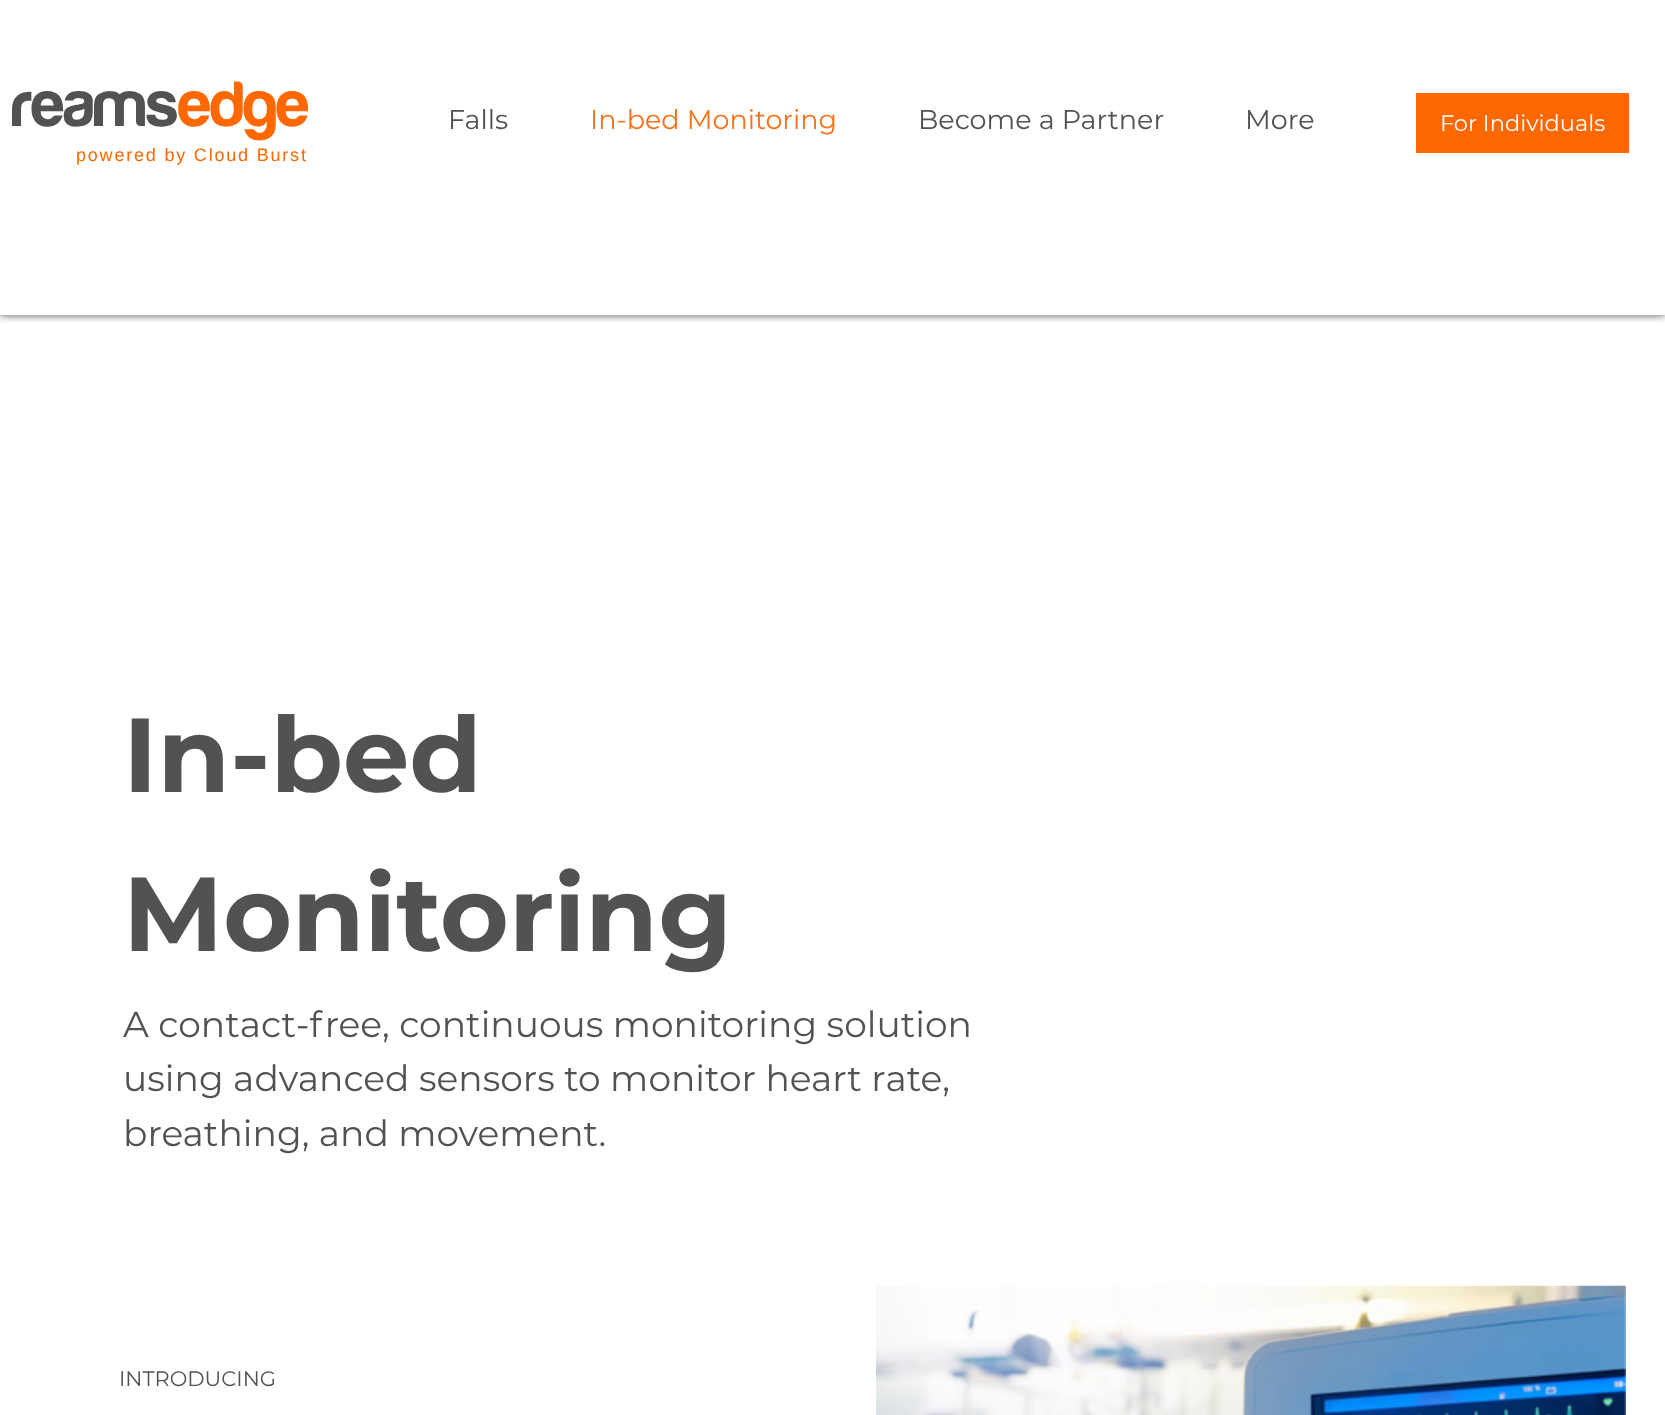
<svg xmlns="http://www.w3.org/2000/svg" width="1665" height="1415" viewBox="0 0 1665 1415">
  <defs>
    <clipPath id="clip1"><rect x="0" y="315" width="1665" height="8"/></clipPath>
    <filter id="blur1" x="-50%" y="-200%" width="200%" height="500%"><feGaussianBlur stdDeviation="4"/></filter>
  </defs>
  <rect width="100%" height="100%" fill="#ffffff"/>
  <g clip-path="url(#clip1)">
    <rect x="0" y="0" width="1665" height="315" fill="#000000" fill-opacity="0.7" filter="url(#blur1)"/>
  </g>
  <text x="12" y="126" font-family="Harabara" font-size="66" font-weight="bold" fill="#525252">reams</text>
  <text x="179" y="126" font-family="Harabara" font-size="66" font-weight="bold" fill="#ff6700">edge</text>
  <text x="76" y="161" font-family="Liberation Sans" font-size="18" letter-spacing="1.8" fill="#ff6700">powered by Cloud Burst</text>
  <text x="448" y="129" font-family="Montserrat" font-size="27" fill="#525252">Falls</text>
  <text x="590" y="129" font-family="Montserrat" font-size="27" fill="#f97118">In-bed Monitoring</text>
  <text x="918" y="129" font-family="Montserrat" font-size="27" fill="#525252">Become a Partner</text>
  <text x="1245" y="129" font-family="Montserrat" font-size="27" fill="#525252">More</text>
  <rect x="1416" y="93" width="213" height="60" fill="#ff6700"/>
  <text x="1440" y="131" font-family="Montserrat" font-size="22.5" fill="#ffffff">For Individuals</text>
  <text x="123" y="792" font-family="Montserrat" font-size="105" font-weight="bold" fill="#525252">In-bed</text>
  <text x="123" y="951" font-family="Montserrat" font-size="105" font-weight="bold" fill="#525252">Monitoring</text>
  <text x="123" y="1037" font-family="Montserrat" font-size="36" fill="#525252">A contact-free, continuous monitoring solution</text>
  <text x="123" y="1091" font-family="Montserrat" font-size="36" fill="#525252">using advanced sensors to monitor heart rate,</text>
  <text x="123" y="1146" font-family="Montserrat" font-size="36" fill="#525252">breathing, and movement.</text>
  <text x="119" y="1386" font-family="Montserrat" font-size="21" fill="#525252">INTRODUCING</text>
  <image x="876" y="1285" width="750" height="130" href="img1.png"/>
</svg>
